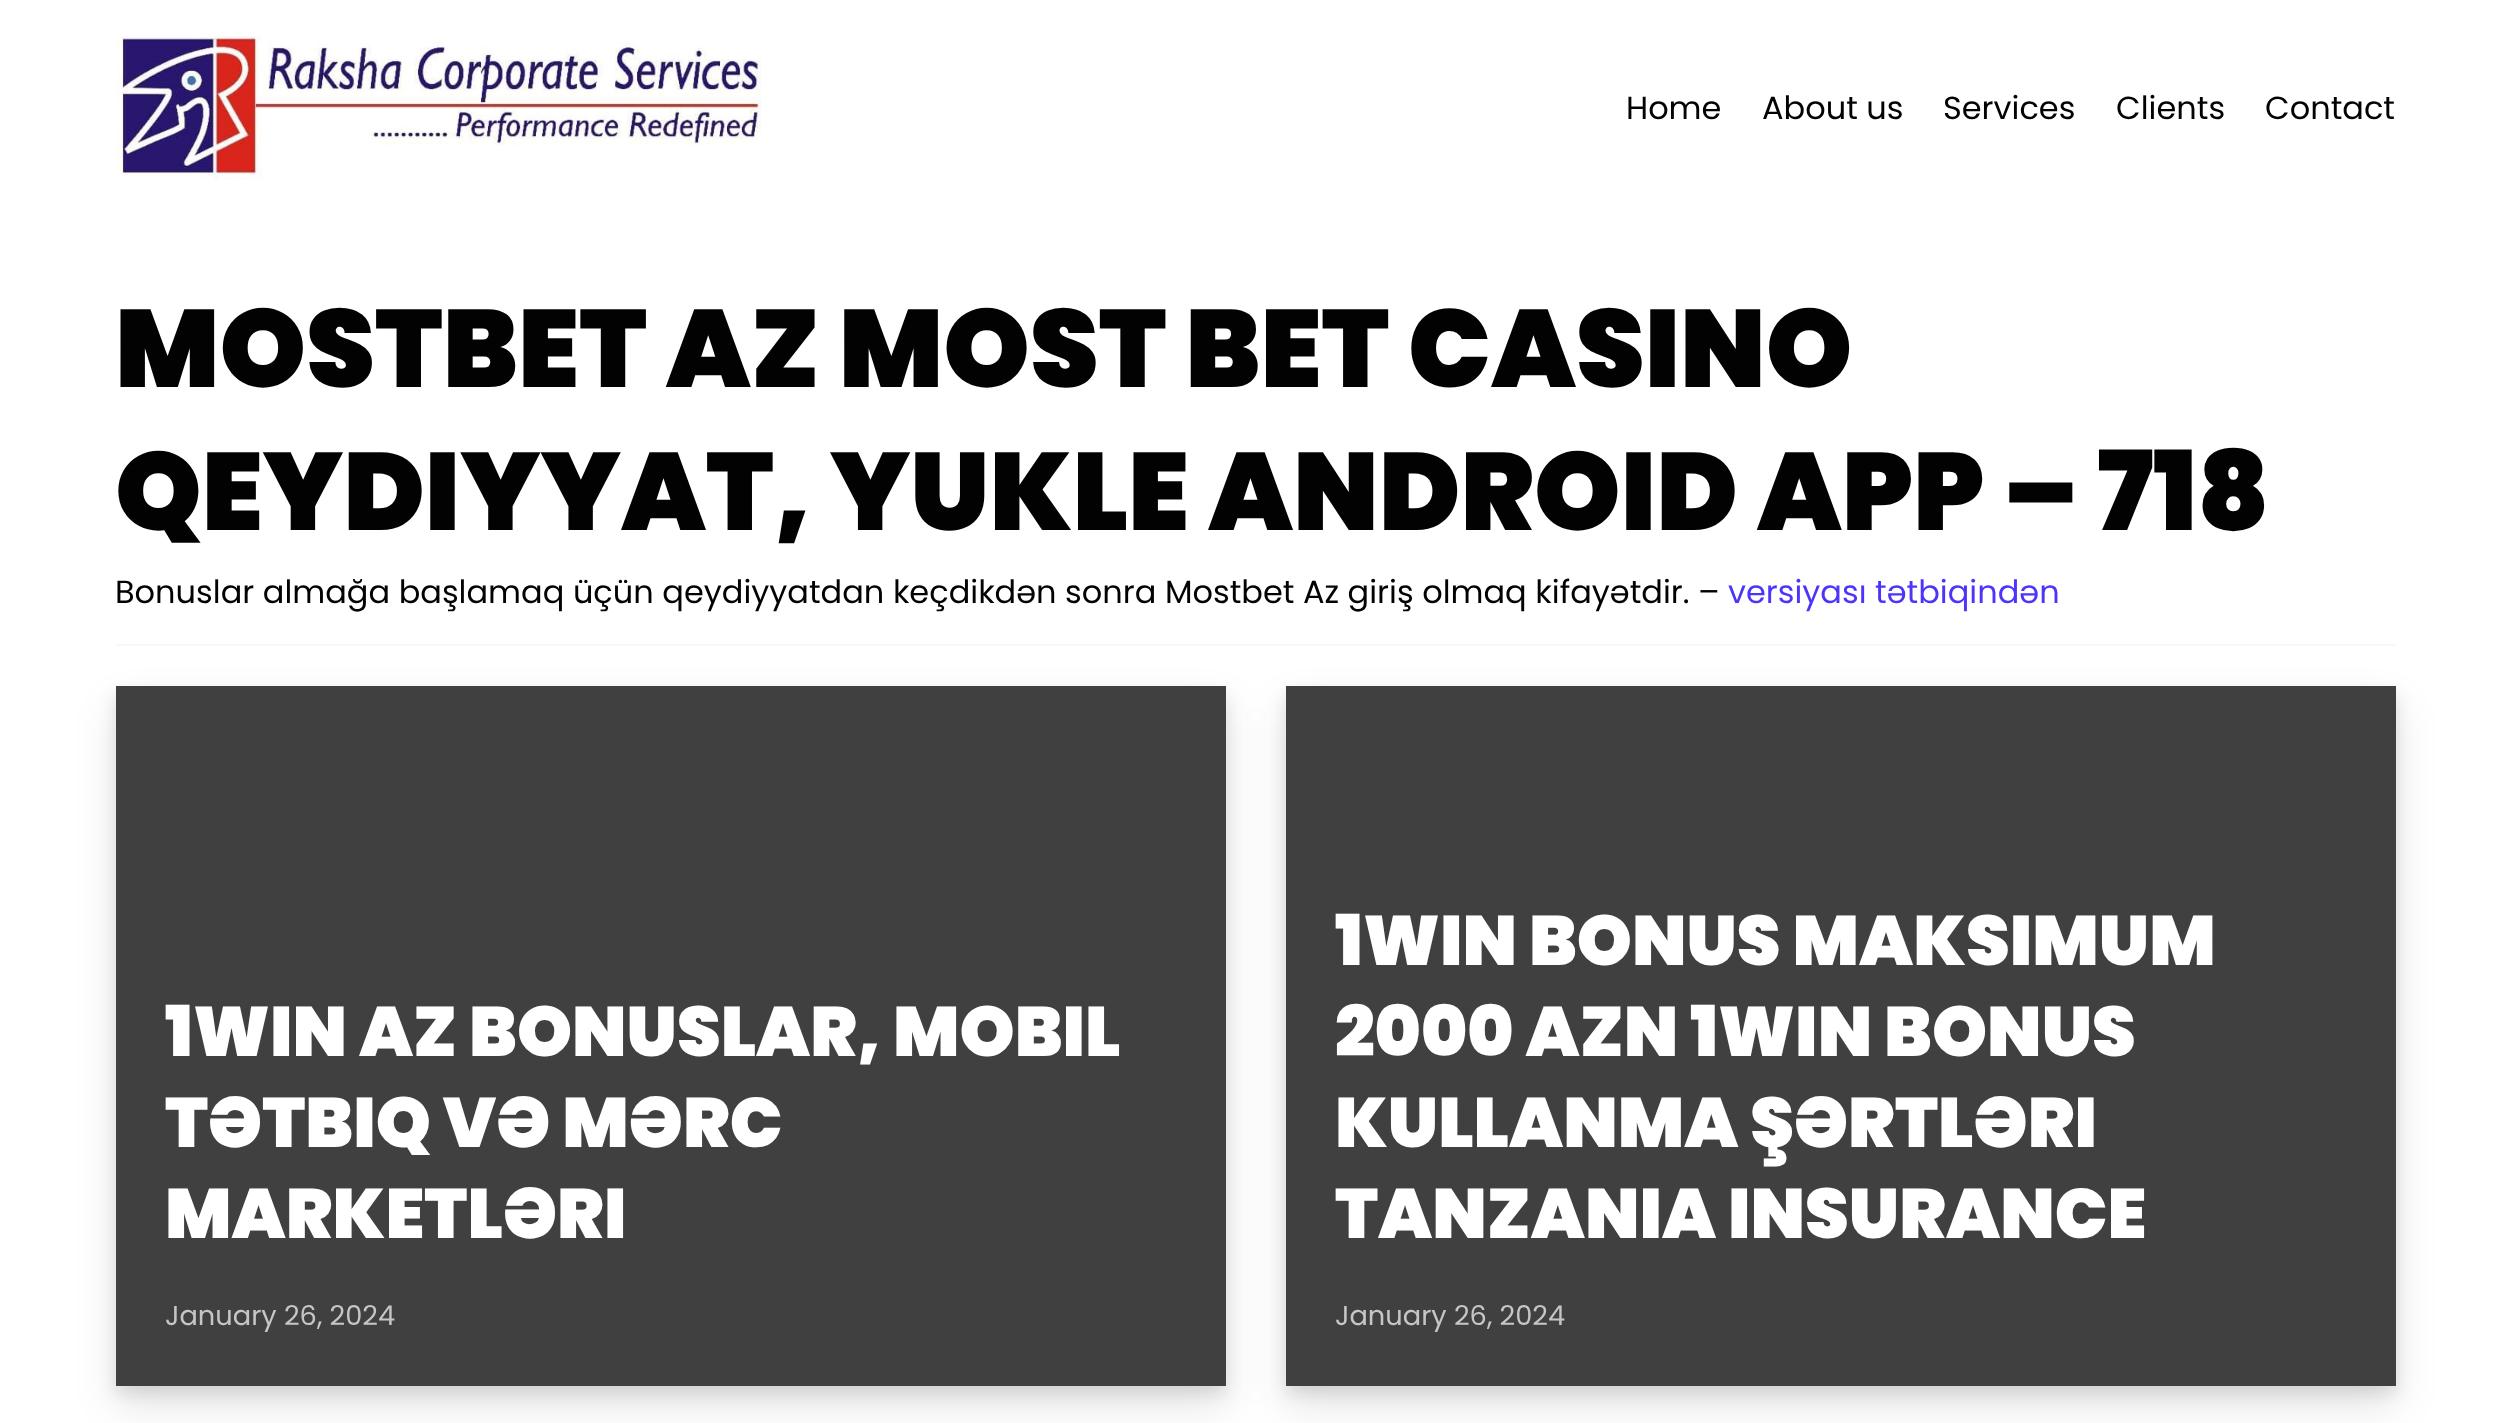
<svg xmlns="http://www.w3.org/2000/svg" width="2510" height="1423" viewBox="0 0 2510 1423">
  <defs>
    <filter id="blur1" x="-50%" y="-200%" width="200%" height="500%"><feGaussianBlur stdDeviation="8"/></filter>
    <filter id="blur2" x="-50%" y="-200%" width="200%" height="500%"><feGaussianBlur stdDeviation="20"/></filter>
  </defs>
  <rect width="100%" height="100%" fill="#ffffff"/>
  <image x="116" y="36" width="645" height="144" href="img1.png"/>
  <text x="1626" y="119" font-family="Poppins" font-size="32" fill="#020202">Home</text>
  <text x="1762" y="119" font-family="Poppins" font-size="32" fill="#020202">About us</text>
  <text x="1943" y="119" font-family="Poppins" font-size="32" fill="#020202">Services</text>
  <text x="2116" y="119" font-family="Poppins" font-size="32" fill="#020202">Clients</text>
  <text x="2265" y="119" font-family="Poppins" font-size="32" fill="#020202">Contact</text>
  <rect x="116" y="644" width="2280" height="2" fill="#f7f7f7"/>
  <text x="115" y="387" font-family="Poppins" font-size="110" font-weight="900" fill="#020202">MOSTBET AZ MOST BET CASINO</text>
  <text x="115" y="530" font-family="Poppins" font-size="110" font-weight="900" fill="#020202">QEYDIYYAT, YUKLE ANDROID APP – 718</text>
  <text x="115" y="603" font-family="Poppins" font-size="32" fill="#020202">Bonuslar almağa başlamaq üçün qeydiyyatdan keçdikdən sonra Mostbet Az giriş olmaq kifayətdir. –</text>
  <text x="1728" y="603" font-family="Poppins" font-size="32" fill="#4c34fb">versiyası tətbiqindən</text>
  <rect x="116" y="694" width="1110" height="700" fill="#000000" fill-opacity="0.1" filter="url(#blur1)"/>
  <rect x="116" y="706" width="1110" height="700" fill="#000000" fill-opacity="0.1" filter="url(#blur2)"/>
  <rect x="116" y="686" width="1110" height="700" fill="#404040"/>
  <text x="165" y="1056" font-family="Poppins" font-size="70" font-weight="900" fill="#ffffff">1WIN AZ BONUSLAR, MOBIL</text>
  <text x="165" y="1147" font-family="Poppins" font-size="70" font-weight="900" fill="#ffffff">TƏTBIQ VƏ MƏRC</text>
  <text x="165" y="1238" font-family="Poppins" font-size="70" font-weight="900" fill="#ffffff">MARKETLƏRI</text>
  <text x="165" y="1325" font-family="Poppins" font-size="27.25" fill="#c6c6c6">January 26, 2024</text>
  <rect x="1286" y="694" width="1110" height="700" fill="#000000" fill-opacity="0.1" filter="url(#blur1)"/>
  <rect x="1286" y="706" width="1110" height="700" fill="#000000" fill-opacity="0.1" filter="url(#blur2)"/>
  <rect x="1286" y="686" width="1110" height="700" fill="#404040"/>
  <text x="1335" y="965" font-family="Poppins" font-size="70" font-weight="900" fill="#ffffff">1WIN BONUS MAKSIMUM</text>
  <text x="1335" y="1056" font-family="Poppins" font-size="70" font-weight="900" fill="#ffffff">2000 AZN 1WIN BONUS</text>
  <text x="1335" y="1147" font-family="Poppins" font-size="70" font-weight="900" fill="#ffffff">KULLANMA ŞƏRTLƏRI</text>
  <text x="1335" y="1238" font-family="Poppins" font-size="70" font-weight="900" fill="#ffffff">TANZANIA INSURANCE</text>
  <text x="1335" y="1325" font-family="Poppins" font-size="27.25" fill="#c6c6c6">January 26, 2024</text>
</svg>
